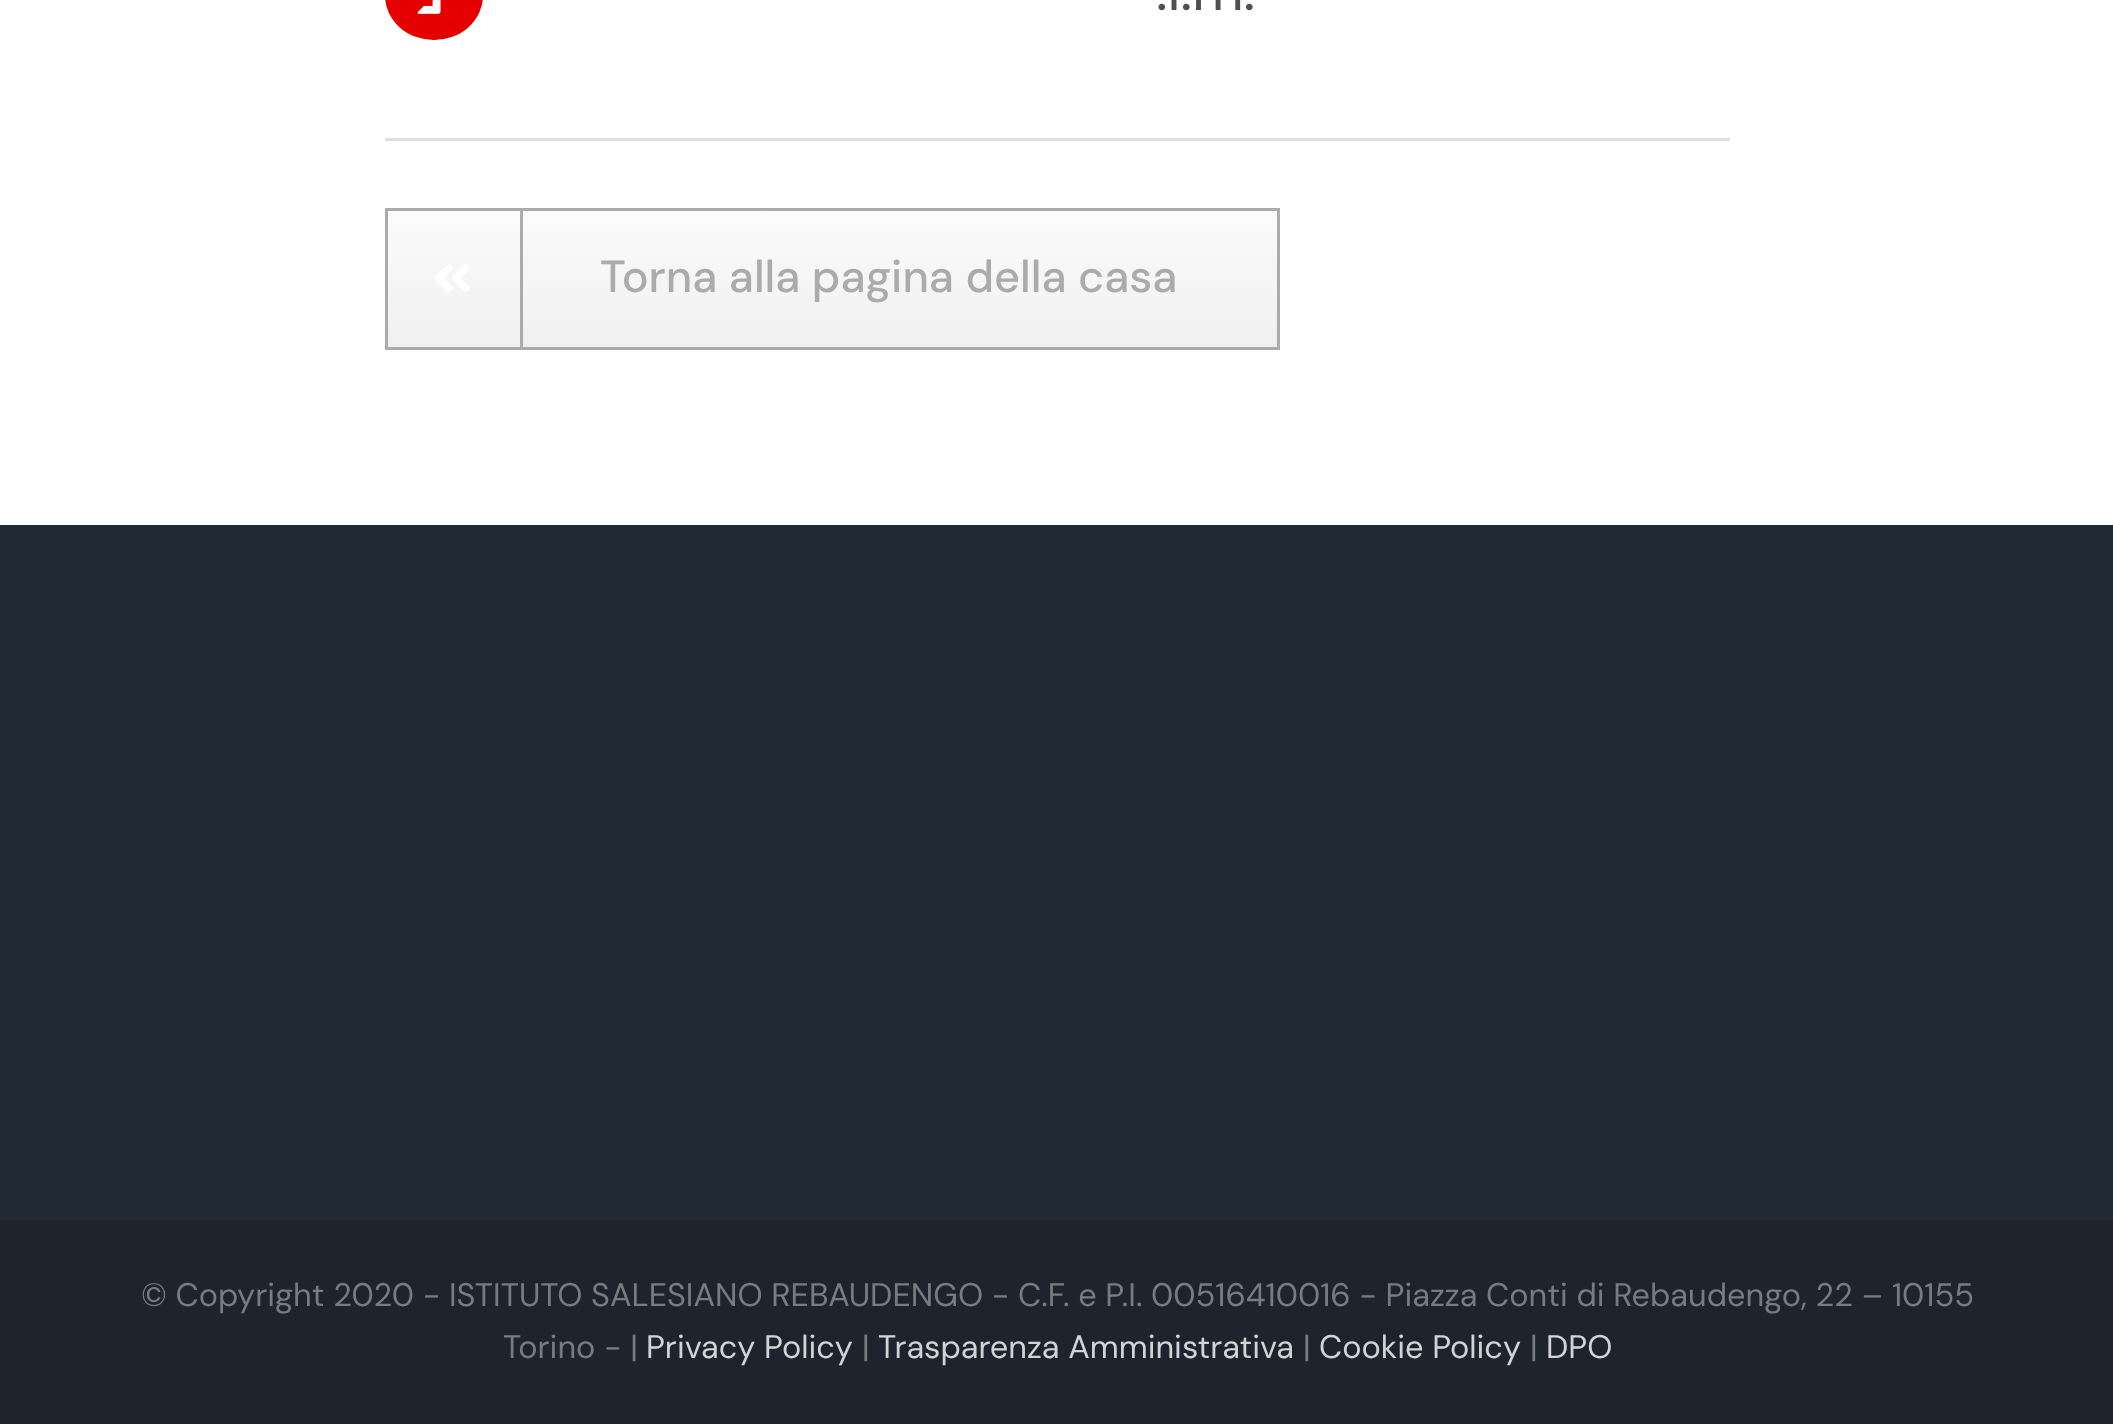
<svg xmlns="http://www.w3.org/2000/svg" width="2113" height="1424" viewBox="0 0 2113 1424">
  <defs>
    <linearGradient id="g1" gradientUnits="userSpaceOnUse" x1="833" y1="348" x2="833" y2="210"><stop offset="0" stop-color="#f0f0f0"/><stop offset="1" stop-color="#fbfbfb"/></linearGradient>
  </defs>
  <rect width="100%" height="100%" fill="#ffffff"/>
  <rect x="385" y="-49" width="98" height="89" rx="48.5" fill="#e50000"/>
  <image x="417" y="0" width="24" height="14" href="img1.png"/>
  <text x="1156" y="10" font-family="DM Sans" font-size="58" fill="#4f4f4f">.l.m.</text>
  <rect x="385" y="138" width="1345" height="3" fill="#e0dede"/>
  <rect x="388" y="211" width="889" height="136" fill="url(#g1)"/>
  <rect x="386.5" y="209.5" width="892" height="139" fill="none" stroke="#ababab" stroke-width="3"/>
  <rect x="520" y="210" width="3" height="138" fill="#ababab"/>
  <image x="435" y="264" width="35" height="28" href="img2.png"/>
  <text x="600" y="292" font-family="DM Sans" font-size="45" font-weight="500" fill="#ababab">Torna alla pagina della casa</text>
  <rect x="0" y="525" width="2113" height="695" fill="#212934"/>
  <rect x="0" y="1220" width="2113" height="204" fill="#1d242d"/>
  <text x="141" y="1306" font-family="DM Sans" font-size="32.5" fill="#777c81">© Copyright 2020 - ISTITUTO SALESIANO REBAUDENGO - C.F. e P.I. 00516410016 - Piazza Conti di Rebaudengo, 22 – 10155</text>
  <text x="503" y="1358" font-family="DM Sans" font-size="32.5" fill="#777c81">Torino - |</text>
  <text x="646" y="1358" font-family="DM Sans" font-size="32.5" fill="#d2d3d5">Privacy Policy</text>
  <text x="862" y="1358" font-family="DM Sans" font-size="32.5" fill="#777c81">|</text>
  <text x="878" y="1358" font-family="DM Sans" font-size="32.5" fill="#d2d3d5">Trasparenza Amministrativa</text>
  <text x="1303" y="1358" font-family="DM Sans" font-size="32.5" fill="#777c81">|</text>
  <text x="1319" y="1358" font-family="DM Sans" font-size="32.5" fill="#d2d3d5">Cookie Policy</text>
  <text x="1530" y="1358" font-family="DM Sans" font-size="32.5" fill="#777c81">|</text>
  <text x="1546" y="1358" font-family="DM Sans" font-size="32.5" fill="#d2d3d5">DPO</text>
</svg>
